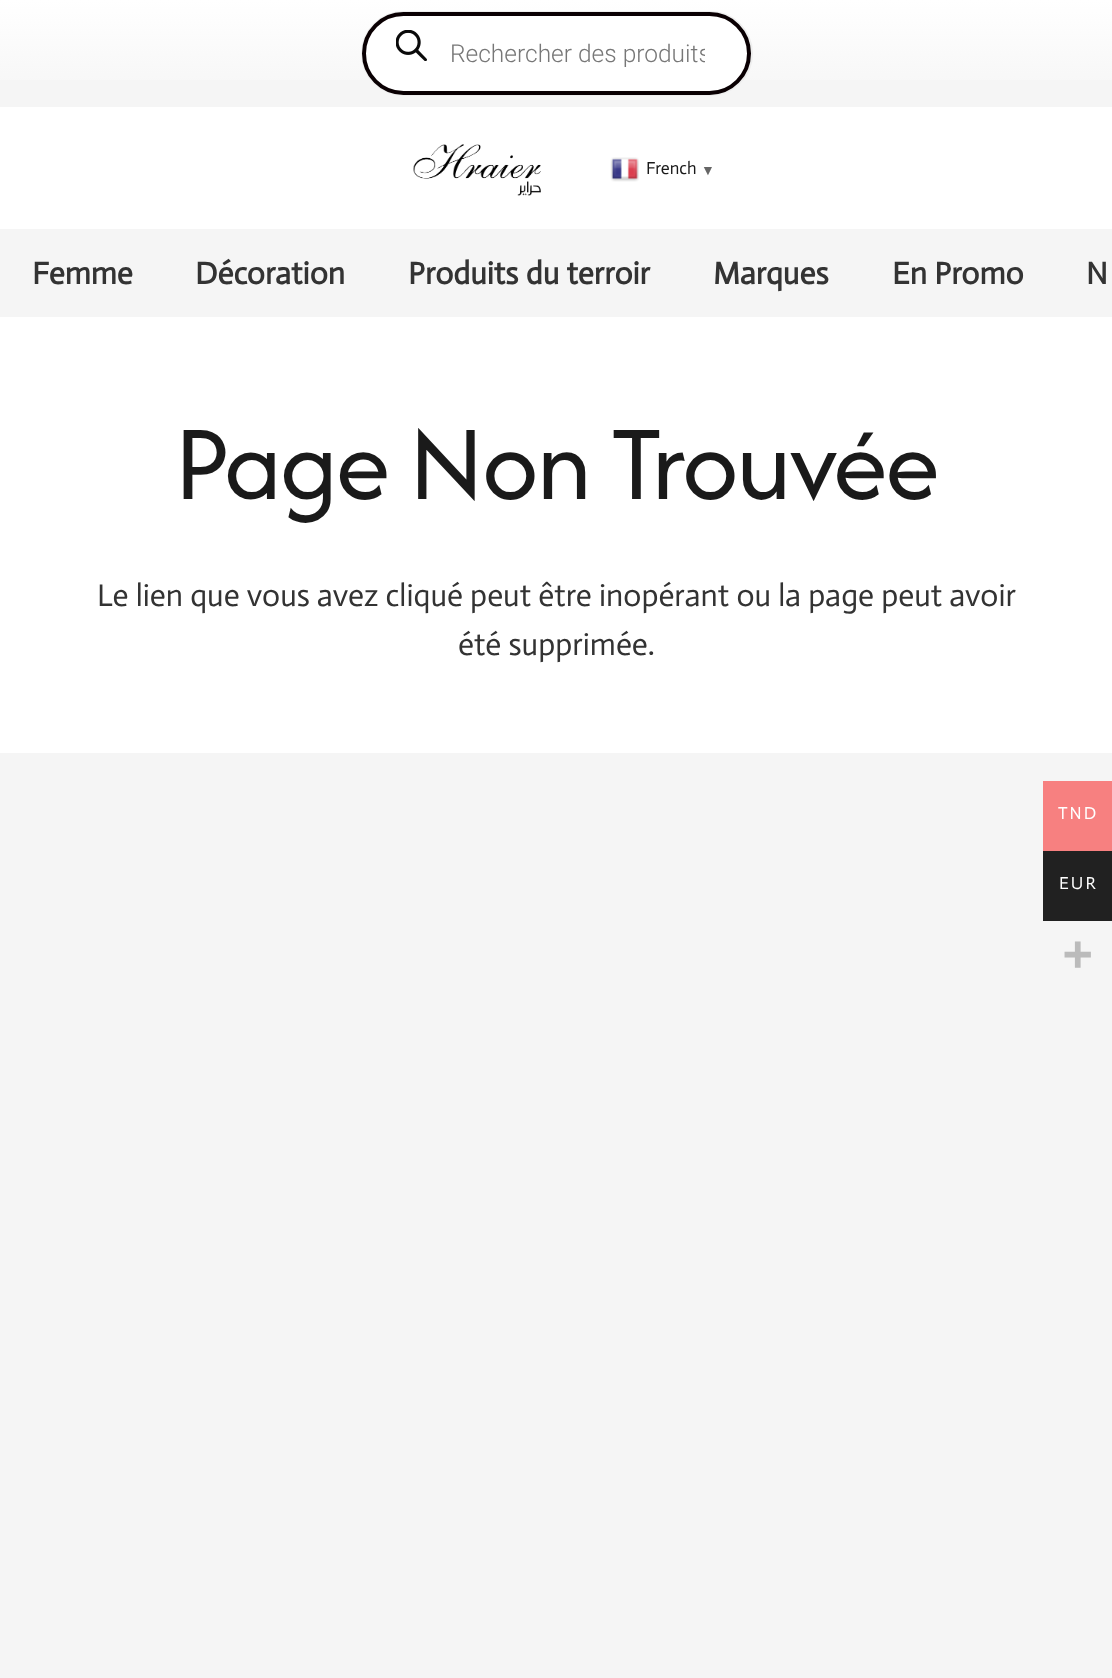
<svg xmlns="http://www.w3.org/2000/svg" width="1112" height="1678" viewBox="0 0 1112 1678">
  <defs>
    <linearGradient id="g1" gradientUnits="userSpaceOnUse" x1="557" y1="107" x2="557" y2="0"><stop offset="0" stop-color="#f5f5f5"/><stop offset="1" stop-color="#ffffff"/></linearGradient>
    <clipPath id="clip1"><rect x="450" y="40" width="255" height="28"/></clipPath>
  </defs>
  <rect width="100%" height="100%" fill="#f5f5f5"/>
  <rect x="0" y="107" width="1112" height="646" fill="#ffffff"/>
  <rect x="0" y="0" width="1112" height="80" fill="url(#g1)"/>
  <rect x="362" y="12" width="390" height="83" rx="41.5" fill="none" stroke="#eeeeee" stroke-width="2"/>
  <rect x="364" y="14" width="385" height="79" rx="39.5" fill="#ffffff" stroke="#0a0003" stroke-width="4"/>
  <image x="396" y="30" width="31" height="31" href="img1.png"/>
  <g clip-path="url(#clip1)">
    <text x="450" y="62" font-family="Roboto" font-size="24.5" font-weight="300" fill="#777777">Rechercher des produits</text>
  </g>
  <image x="413" y="144" width="128" height="52" href="img2.png"/>
  <image x="610" y="157" width="29" height="25" href="img3.png"/>
  <text x="646" y="174" font-family="Actor" font-size="17.5" fill="#1a1a1a">French</text>
  <text x="701" y="175" font-family="Liberation Sans" font-size="14" font-weight="bold" fill="#666666">▼</text>
  <rect x="0" y="229" width="1112" height="88" fill="#f5f5f5"/>
  <text x="32" y="284" font-family="Actor" font-size="31.5" font-weight="bold" fill="#333333">Femme</text>
  <text x="195" y="284" font-family="Actor" font-size="31.5" font-weight="bold" fill="#333333">Décoration</text>
  <text x="408" y="284" font-family="Actor" font-size="31.5" font-weight="bold" fill="#333333">Produits du terroir</text>
  <text x="713" y="284" font-family="Actor" font-size="31.5" font-weight="bold" fill="#333333">Marques</text>
  <text x="892" y="284" font-family="Actor" font-size="31.5" font-weight="bold" fill="#333333">En Promo</text>
  <text x="1086" y="284" font-family="Actor" font-size="31.5" font-weight="bold" fill="#333333">N</text>
  <text x="174" y="499" font-family="Afacad" font-size="110.25" letter-spacing="-2.25" fill="#1a1a1a">Page Non Trouvée</text>
  <text x="97" y="606" font-family="Actor" font-size="31.5" fill="#333333">Le lien que vous avez cliqué peut être inopérant ou la page peut avoir</text>
  <text x="458" y="655" font-family="Actor" font-size="31.5" fill="#333333">été supprimée.</text>
  <rect x="1043" y="781" width="69" height="70" fill="#f78080"/>
  <text x="1058" y="819" font-family="Actor" font-size="17.5" letter-spacing="2" fill="#ffffff">TND</text>
  <rect x="1043" y="851" width="69" height="70" fill="#212121"/>
  <text x="1059" y="889" font-family="Actor" font-size="17.5" letter-spacing="2" fill="#ffffff">EUR</text>
  <text x="1063" y="970" font-family="DejaVu Sans Mono" font-size="49" font-weight="bold" fill="#bbbbbb">+</text>
</svg>
